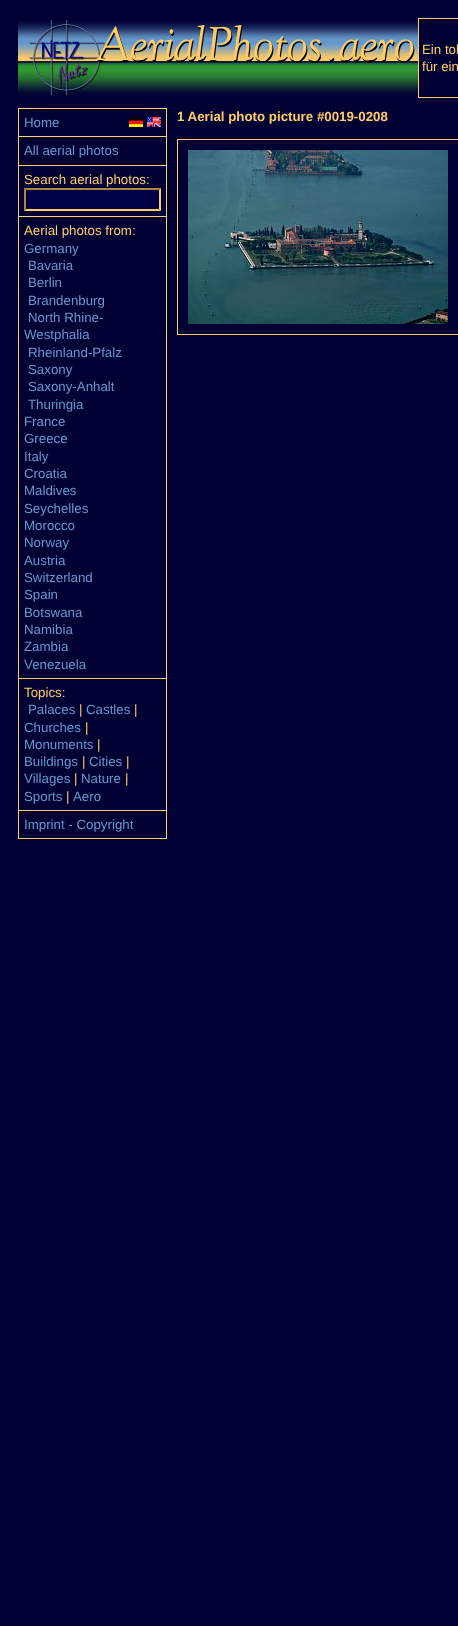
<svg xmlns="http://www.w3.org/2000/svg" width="458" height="1626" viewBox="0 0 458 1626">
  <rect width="100%" height="100%" fill="#000033"/>
  <image x="18" y="21" width="400" height="74" href="img1.png"/>
  <image x="29" y="20" width="386" height="76" href="img2.png"/>
  <rect x="418" y="18" width="40" height="1" fill="#ffcc66"/>
  <rect x="418" y="97" width="40" height="1" fill="#ffcc66"/>
  <rect x="418" y="18" width="1" height="80" fill="#ffcc66"/>
  <text x="422" y="54" font-family="Liberation Sans" font-size="13.3" fill="#ffcc66">Ein tol</text>
  <text x="422" y="71" font-family="Liberation Sans" font-size="13.3" fill="#ffcc66">für ein</text>
  <rect x="18" y="108" width="149" height="1" fill="#ffcc66"/>
  <rect x="166" y="108" width="1" height="731" fill="#ffcc66"/>
  <rect x="18" y="838" width="149" height="1" fill="#ffcc66"/>
  <rect x="18" y="108" width="1" height="731" fill="#ffcc66"/>
  <text x="24" y="127" font-family="Liberation Sans" font-size="13.3" fill="#6699cc">Home</text>
  <image x="129" y="117" width="14" height="10" href="img3.png"/>
  <image x="147" y="117" width="14" height="10" href="img4.png"/>
  <rect x="18" y="136" width="149" height="1" fill="#ffcc66"/>
  <text x="24" y="155" font-family="Liberation Sans" font-size="13.3" fill="#6699cc">All aerial photos</text>
  <rect x="18" y="165" width="149" height="1" fill="#ffcc66"/>
  <text x="24" y="184" font-family="Liberation Sans" font-size="13.3" fill="#ffcc66">Search aerial photos:</text>
  <rect x="24" y="188" width="137" height="23" fill="#000044"/>
  <path d="M24 188H161L159 190H26Z" fill="#aa8844"/>
  <path d="M161 188V211L159 209V190Z" fill="#ffcc66"/>
  <path d="M161 211H24L26 209H159Z" fill="#ffcc66"/>
  <path d="M24 211V188L26 190V209Z" fill="#aa8844"/>
  <rect x="18" y="216" width="149" height="1" fill="#ffcc66"/>
  <text x="24" y="235" font-family="Liberation Sans" font-size="13.3" fill="#ffcc66">Aerial photos from:</text>
  <text x="24" y="253" font-family="Liberation Sans" font-size="13.3" fill="#6699cc">Germany</text>
  <text x="28" y="270" font-family="Liberation Sans" font-size="13.3" fill="#6699cc">Bavaria</text>
  <text x="28" y="287" font-family="Liberation Sans" font-size="13.3" fill="#6699cc">Berlin</text>
  <text x="28" y="305" font-family="Liberation Sans" font-size="13.3" fill="#6699cc">Brandenburg</text>
  <text x="28" y="322" font-family="Liberation Sans" font-size="13.3" fill="#6699cc">North Rhine-</text>
  <text x="24" y="339" font-family="Liberation Sans" font-size="13.3" fill="#6699cc">Westphalia</text>
  <text x="28" y="357" font-family="Liberation Sans" font-size="13.3" fill="#6699cc">Rheinland-Pfalz</text>
  <text x="28" y="374" font-family="Liberation Sans" font-size="13.3" fill="#6699cc">Saxony</text>
  <text x="28" y="391" font-family="Liberation Sans" font-size="13.3" fill="#6699cc">Saxony-Anhalt</text>
  <text x="28" y="409" font-family="Liberation Sans" font-size="13.3" fill="#6699cc">Thuringia</text>
  <text x="24" y="426" font-family="Liberation Sans" font-size="13.3" fill="#6699cc">France</text>
  <text x="24" y="443" font-family="Liberation Sans" font-size="13.3" fill="#6699cc">Greece</text>
  <text x="24" y="461" font-family="Liberation Sans" font-size="13.3" fill="#6699cc">Italy</text>
  <text x="24" y="478" font-family="Liberation Sans" font-size="13.3" fill="#6699cc">Croatia</text>
  <text x="24" y="495" font-family="Liberation Sans" font-size="13.3" fill="#6699cc">Maldives</text>
  <text x="24" y="513" font-family="Liberation Sans" font-size="13.3" fill="#6699cc">Seychelles</text>
  <text x="24" y="530" font-family="Liberation Sans" font-size="13.3" fill="#6699cc">Morocco</text>
  <text x="24" y="547" font-family="Liberation Sans" font-size="13.3" fill="#6699cc">Norway</text>
  <text x="24" y="565" font-family="Liberation Sans" font-size="13.3" fill="#6699cc">Austria</text>
  <text x="24" y="582" font-family="Liberation Sans" font-size="13.3" fill="#6699cc">Switzerland</text>
  <text x="24" y="599" font-family="Liberation Sans" font-size="13.3" fill="#6699cc">Spain</text>
  <text x="24" y="617" font-family="Liberation Sans" font-size="13.3" fill="#6699cc">Botswana</text>
  <text x="24" y="634" font-family="Liberation Sans" font-size="13.3" fill="#6699cc">Namibia</text>
  <text x="24" y="651" font-family="Liberation Sans" font-size="13.3" fill="#6699cc">Zambia</text>
  <text x="24" y="669" font-family="Liberation Sans" font-size="13.3" fill="#6699cc">Venezuela</text>
  <rect x="18" y="678" width="149" height="1" fill="#ffcc66"/>
  <text x="24" y="697" font-family="Liberation Sans" font-size="13.3" fill="#ffcc66">Topics:</text>
  <text x="28" y="714" font-family="Liberation Sans" font-size="13.3" fill="#6699cc">Palaces</text>
  <text x="79" y="714" font-family="Liberation Sans" font-size="13.3" fill="#ffcc66">|</text>
  <text x="86" y="714" font-family="Liberation Sans" font-size="13.3" fill="#6699cc">Castles</text>
  <text x="134" y="714" font-family="Liberation Sans" font-size="13.3" fill="#ffcc66">|</text>
  <text x="24" y="732" font-family="Liberation Sans" font-size="13.3" fill="#6699cc">Churches</text>
  <text x="85" y="732" font-family="Liberation Sans" font-size="13.3" fill="#ffcc66">|</text>
  <text x="24" y="749" font-family="Liberation Sans" font-size="13.3" fill="#6699cc">Monuments</text>
  <text x="97" y="749" font-family="Liberation Sans" font-size="13.3" fill="#ffcc66">|</text>
  <text x="24" y="766" font-family="Liberation Sans" font-size="13.3" fill="#6699cc">Buildings</text>
  <text x="82" y="766" font-family="Liberation Sans" font-size="13.3" fill="#ffcc66">|</text>
  <text x="89" y="766" font-family="Liberation Sans" font-size="13.3" fill="#6699cc">Cities</text>
  <text x="126" y="766" font-family="Liberation Sans" font-size="13.3" fill="#ffcc66">|</text>
  <text x="24" y="783" font-family="Liberation Sans" font-size="13.3" fill="#6699cc">Villages</text>
  <text x="74" y="783" font-family="Liberation Sans" font-size="13.3" fill="#ffcc66">|</text>
  <text x="81" y="783" font-family="Liberation Sans" font-size="13.3" fill="#6699cc">Nature</text>
  <text x="125" y="783" font-family="Liberation Sans" font-size="13.3" fill="#ffcc66">|</text>
  <text x="24" y="801" font-family="Liberation Sans" font-size="13.3" fill="#6699cc">Sports</text>
  <text x="66" y="801" font-family="Liberation Sans" font-size="13.3" fill="#ffcc66">|</text>
  <text x="73" y="801" font-family="Liberation Sans" font-size="13.3" fill="#6699cc">Aero</text>
  <rect x="18" y="810" width="149" height="1" fill="#ffcc66"/>
  <text x="24" y="829" font-family="Liberation Sans" font-size="13.3" fill="#6699cc">Imprint - Copyright</text>
  <text x="177" y="121" font-family="Liberation Sans" font-size="13.3" font-weight="bold" fill="#ffcc66">1 Aerial photo picture #0019-0208</text>
  <rect x="177" y="139" width="281" height="1" fill="#ffcc66"/>
  <rect x="177" y="334" width="281" height="1" fill="#ffcc66"/>
  <rect x="177" y="139" width="1" height="196" fill="#ffcc66"/>
  <image x="188" y="150" width="260" height="174" href="img5.png"/>
</svg>
